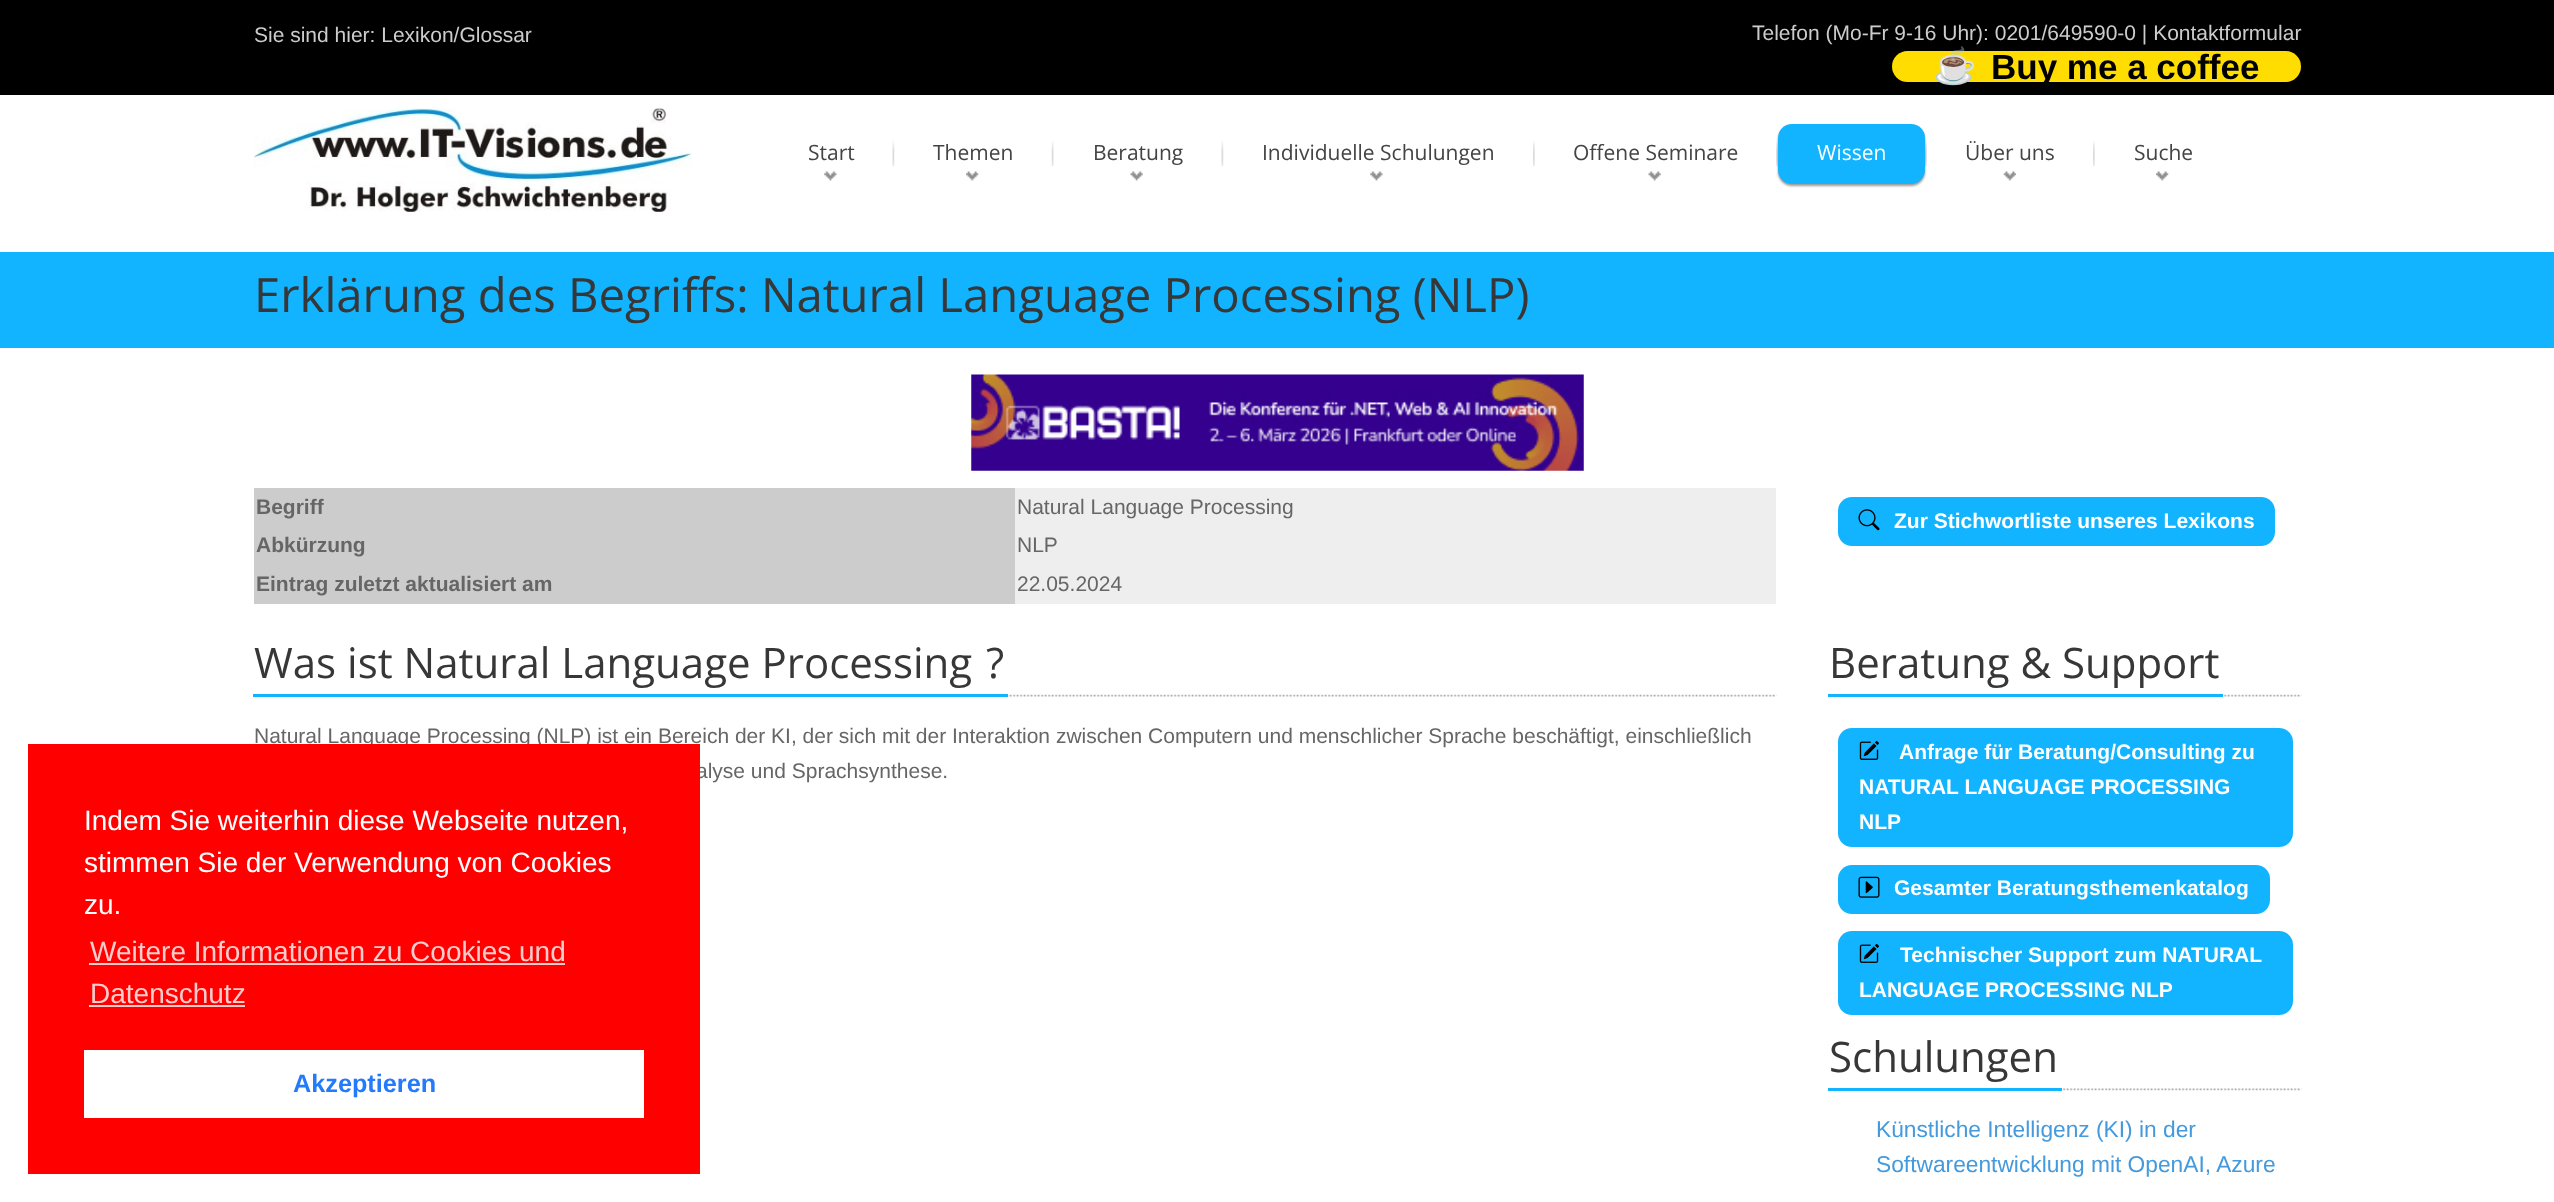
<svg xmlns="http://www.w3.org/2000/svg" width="2554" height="1202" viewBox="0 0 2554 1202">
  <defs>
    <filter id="blur1" x="-50%" y="-200%" width="200%" height="500%"><feGaussianBlur stdDeviation="1"/></filter>
  </defs>
  <rect width="100%" height="100%" fill="#ffffff"/>
  <rect x="0" y="0" width="2554" height="95" fill="#000000"/>
  <text x="254" y="42" font-family="Liberation Sans" font-size="21" fill="#cccccc">Sie sind hier: Lexikon/Glossar</text>
  <text x="1752" y="40" font-family="Liberation Sans" font-size="21" fill="#cccccc">Telefon (Mo-Fr 9-16 Uhr): 0201/649590-0 | Kontaktformular</text>
  <rect x="1892" y="51" width="409" height="31" rx="15.5" fill="#ffdd00"/>
  <text x="1933" y="78" font-family="Noto Color Emoji" font-size="35" font-weight="bold" fill="#000000">☕</text>
  <text x="1991" y="79" font-family="Liberation Sans" font-size="35" font-weight="bold" fill="#000000">Buy me a coffee</text>
  <image x="254" y="108" width="438" height="104" href="img1.png"/>
  <image x="892" y="140" width="3" height="27" href="img2.png"/>
  <text x="808" y="160" font-family="Open Sans" font-size="21" fill="#444444">Start</text>
  <image x="824" y="171" width="13" height="10" href="img3.png"/>
  <image x="1051" y="140" width="3" height="27" href="img4.png"/>
  <text x="933" y="160" font-family="Open Sans" font-size="21" fill="#444444">Themen</text>
  <image x="966" y="171" width="13" height="10" href="img5.png"/>
  <image x="1221" y="140" width="3" height="27" href="img2.png"/>
  <text x="1093" y="160" font-family="Open Sans" font-size="21" fill="#444444">Beratung</text>
  <image x="1130" y="171" width="13" height="10" href="img6.png"/>
  <image x="1533" y="140" width="2" height="27" href="img7.png"/>
  <text x="1262" y="160" font-family="Open Sans" font-size="21" fill="#444444">Individuelle Schulungen</text>
  <image x="1370" y="171" width="13" height="10" href="img3.png"/>
  <image x="1776" y="140" width="2" height="27" href="img8.png"/>
  <text x="1573" y="160" font-family="Open Sans" font-size="21" fill="#444444">Offene Seminare</text>
  <image x="1648" y="171" width="13" height="10" href="img6.png"/>
  <image x="1925" y="140" width="2" height="27" href="img7.png"/>
  <rect x="1778" y="126" width="147" height="60" rx="14" fill="#000000" fill-opacity="0.4" filter="url(#blur1)"/>
  <rect x="1778" y="124" width="147" height="60" rx="14" fill="#12b4ff"/>
  <text x="1817" y="160" font-family="Open Sans" font-size="21" fill="#ffffff">Wissen</text>
  <image x="2093" y="140" width="2" height="27" href="img7.png"/>
  <text x="1965" y="160" font-family="Open Sans" font-size="21" fill="#444444">Über uns</text>
  <image x="2003" y="171" width="13" height="10" href="img9.png"/>
  <text x="2134" y="160" font-family="Open Sans" font-size="21" fill="#444444">Suche</text>
  <image x="2156" y="171" width="13" height="10" href="img5.png"/>
  <rect x="0" y="252" width="2554" height="96" fill="#12b4ff"/>
  <text x="254" y="312" font-family="Open Sans" font-size="47.25" fill="#373737">Erklärung des Begriffs: Natural Language Processing (NLP)</text>
  <image x="971" y="374" width="613" height="97" href="img10.png"/>
  <rect x="254" y="488" width="761" height="116" fill="#cccccc"/>
  <text x="256" y="514" font-family="Liberation Sans" font-size="21" font-weight="bold" fill="#676667">Begriff</text>
  <rect x="1015" y="488" width="761" height="116" fill="#eeeeee"/>
  <text x="1017" y="514" font-family="Liberation Sans" font-size="21" fill="#676667">Natural Language Processing</text>
  <text x="256" y="552" font-family="Liberation Sans" font-size="21" font-weight="bold" fill="#676667">Abkürzung</text>
  <text x="1017" y="552" font-family="Liberation Sans" font-size="21" fill="#676667">NLP</text>
  <text x="256" y="591" font-family="Liberation Sans" font-size="21" font-weight="bold" fill="#676667">Eintrag zuletzt aktualisiert am</text>
  <text x="1017" y="591" font-family="Liberation Sans" font-size="21" fill="#676667">22.05.2024</text>
  <rect x="1838" y="497" width="437" height="49" rx="14" fill="#12b4ff"/>
  <image x="1858" y="509" width="22" height="22" href="img11.png"/>
  <text x="1894" y="528" font-family="Liberation Sans" font-size="21" font-weight="bold" fill="#ffffff">Zur Stichwortliste unseres Lexikons</text>
  <image x="1008" y="694" width="769" height="3" href="img12.png"/>
  <rect x="253" y="694" width="755" height="3" fill="#12b4ff"/>
  <text x="254" y="678" font-family="Open Sans" font-size="42" fill="#373737">Was ist Natural Language Processing</text>
  <text x="986" y="678" font-family="Open Sans" font-size="42" fill="#373737">?</text>
  <text x="254" y="743" font-family="Liberation Sans" font-size="21" fill="#676667">Natural Language Processing (NLP) ist ein Bereich der KI, der sich mit der Interaktion zwischen Computern und menschlicher Sprache beschäftigt, einschließlich</text>
  <text x="696" y="778" font-family="Liberation Sans" font-size="21" fill="#676667">alyse und Sprachsynthese.</text>
  <image x="2223" y="694" width="79" height="3" href="img13.png"/>
  <rect x="1828" y="694" width="395" height="3" fill="#12b4ff"/>
  <text x="1829" y="678" font-family="Open Sans" font-size="42" fill="#373737">Beratung &amp; Support</text>
  <rect x="1838" y="728" width="455" height="119" rx="14" fill="#12b4ff"/>
  <image x="1859" y="740" width="20" height="20" href="img14.png"/>
  <text x="1899" y="759" font-family="Liberation Sans" font-size="21" font-weight="bold" fill="#ffffff">Anfrage für Beratung/Consulting zu</text>
  <text x="1859" y="794" font-family="Liberation Sans" font-size="21" font-weight="bold" fill="#ffffff">NATURAL LANGUAGE PROCESSING</text>
  <text x="1859" y="829" font-family="Liberation Sans" font-size="21" font-weight="bold" fill="#ffffff">NLP</text>
  <rect x="1838" y="865" width="432" height="49" rx="14" fill="#12b4ff"/>
  <image x="1858" y="876" width="22" height="22" href="img15.png"/>
  <text x="1894" y="895" font-family="Liberation Sans" font-size="21" font-weight="bold" fill="#ffffff">Gesamter Beratungsthemenkatalog</text>
  <rect x="1838" y="931" width="455" height="84" rx="14" fill="#12b4ff"/>
  <image x="1859" y="943" width="20" height="20" href="img14.png"/>
  <text x="1900" y="962" font-family="Liberation Sans" font-size="21" font-weight="bold" fill="#ffffff">Technischer Support zum NATURAL</text>
  <text x="1859" y="997" font-family="Liberation Sans" font-size="21" font-weight="bold" fill="#ffffff">LANGUAGE PROCESSING NLP</text>
  <image x="2062" y="1088" width="240" height="3" href="img16.png"/>
  <rect x="1828" y="1088" width="234" height="3" fill="#12b4ff"/>
  <text x="1829" y="1072" font-family="Open Sans" font-size="42" fill="#373737">Schulungen</text>
  <text x="1876" y="1137" font-family="Liberation Sans" font-size="22.75" fill="#449adc">Künstliche Intelligenz (KI) in der</text>
  <text x="1876" y="1172" font-family="Liberation Sans" font-size="22.75" fill="#449adc">Softwareentwicklung mit OpenAI, Azure</text>
  <rect x="28" y="744" width="672" height="430" fill="#ff0000"/>
  <text x="84" y="830" font-family="Liberation Sans" font-size="28" fill="#ffffff">Indem Sie weiterhin diese Webseite nutzen,</text>
  <text x="84" y="872" font-family="Liberation Sans" font-size="28" fill="#ffffff">stimmen Sie der Verwendung von Cookies</text>
  <text x="84" y="914" font-family="Liberation Sans" font-size="28" fill="#ffffff">zu.</text>
  <text x="90" y="961" font-family="Liberation Sans" font-size="28" fill="#ffcccc">Weitere Informationen zu Cookies und</text>
  <rect x="89" y="963" width="476" height="2" fill="#ffcccc"/>
  <text x="90" y="1003" font-family="Liberation Sans" font-size="28" fill="#ffcccc">Datenschutz</text>
  <rect x="89" y="1005" width="156" height="2" fill="#ffcccc"/>
  <rect x="84" y="1050" width="560" height="68" fill="#ffffff"/>
  <text x="293" y="1092" font-family="Liberation Sans" font-size="25.25" font-weight="bold" fill="#237afc">Akzeptieren</text>
</svg>
